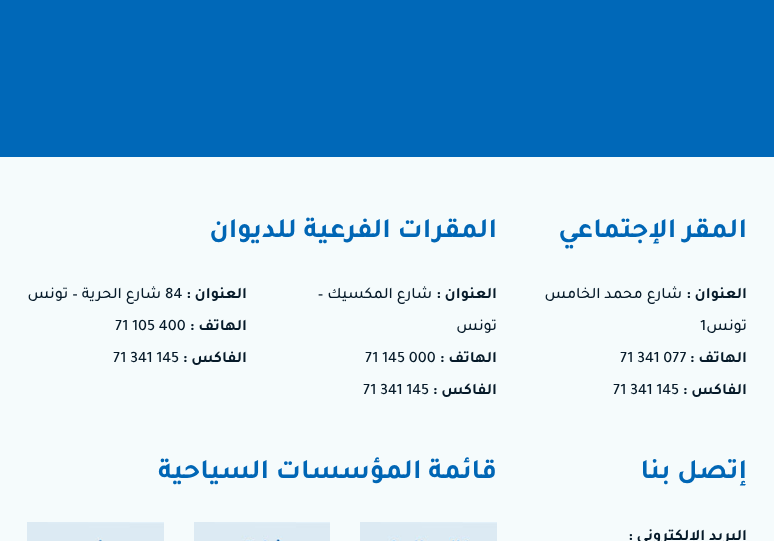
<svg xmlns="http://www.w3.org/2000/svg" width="774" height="541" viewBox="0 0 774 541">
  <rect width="100%" height="100%" fill="#0068b8"/>
  <rect x="0" y="157" width="774" height="384" fill="#f5fbfc"/>
  <text x="747" y="237" font-family="Tajawal" font-size="28" font-weight="bold" direction="rtl" fill="#0066b5">المقر الإجتماعي</text>
  <text x="747" y="298" font-family="Tajawal" font-size="16" font-weight="bold" direction="rtl" fill="#061a29">العنوان :</text>
  <text x="682" y="298" font-family="Tajawal" font-size="16" font-weight="500" direction="rtl" fill="#061a29">شارع محمد الخامس</text>
  <text x="747" y="330" font-family="Tajawal" font-size="16" font-weight="500" direction="rtl" fill="#061a29">تونس</text>
  <text x="700" y="330" font-family="Tajawal" font-size="16" font-weight="500" fill="#061a29">1</text>
  <text x="747" y="362" font-family="Tajawal" font-size="16" font-weight="bold" direction="rtl" fill="#061a29">الهاتف :</text>
  <text x="620" y="362" font-family="Tajawal" font-size="16" font-weight="500" fill="#061a29">71 341 077</text>
  <text x="747" y="394" font-family="Tajawal" font-size="16" font-weight="bold" direction="rtl" fill="#061a29">الفاكس :</text>
  <text x="613" y="394" font-family="Tajawal" font-size="16" font-weight="500" fill="#061a29">71 341 145</text>
  <text x="497" y="237" font-family="Tajawal" font-size="28" font-weight="bold" direction="rtl" fill="#0066b5">المقرات الفرعية للديوان</text>
  <text x="497" y="298" font-family="Tajawal" font-size="16" font-weight="bold" direction="rtl" fill="#061a29">العنوان :</text>
  <text x="432" y="298" font-family="Tajawal" font-size="16" font-weight="500" direction="rtl" fill="#061a29">شارع المكسيك –</text>
  <text x="497" y="330" font-family="Tajawal" font-size="16" font-weight="500" direction="rtl" fill="#061a29">تونس</text>
  <text x="497" y="362" font-family="Tajawal" font-size="16" font-weight="bold" direction="rtl" fill="#061a29">الهاتف :</text>
  <text x="365" y="362" font-family="Tajawal" font-size="16" font-weight="500" fill="#061a29">71 145 000</text>
  <text x="497" y="394" font-family="Tajawal" font-size="16" font-weight="bold" direction="rtl" fill="#061a29">الفاكس :</text>
  <text x="363" y="394" font-family="Tajawal" font-size="16" font-weight="500" fill="#061a29">71 341 145</text>
  <text x="247" y="298" font-family="Tajawal" font-size="16" font-weight="bold" direction="rtl" fill="#061a29">العنوان :</text>
  <text x="165" y="298" font-family="Tajawal" font-size="16" font-weight="500" fill="#061a29">84</text>
  <text x="161" y="298" font-family="Tajawal" font-size="16" font-weight="500" direction="rtl" fill="#061a29">شارع الحرية – تونس</text>
  <text x="247" y="330" font-family="Tajawal" font-size="16" font-weight="bold" direction="rtl" fill="#061a29">الهاتف :</text>
  <text x="115" y="330" font-family="Tajawal" font-size="16" font-weight="500" fill="#061a29">71 105 400</text>
  <text x="247" y="362" font-family="Tajawal" font-size="16" font-weight="bold" direction="rtl" fill="#061a29">الفاكس :</text>
  <text x="113" y="362" font-family="Tajawal" font-size="16" font-weight="500" fill="#061a29">71 341 145</text>
  <text x="747" y="478" font-family="Tajawal" font-size="28" font-weight="bold" direction="rtl" fill="#0066b5">إتصل بنا</text>
  <text x="747" y="540" font-family="Tajawal" font-size="16" font-weight="bold" direction="rtl" fill="#061a29">البريد الإلكتروني :</text>
  <text x="497" y="478" font-family="Tajawal" font-size="28" font-weight="bold" direction="rtl" fill="#0066b5">قائمة المؤسسات السياحية</text>
  <image x="360" y="522" width="137" height="19" href="img1.png"/>
  <image x="194" y="522" width="136" height="19" href="img2.png"/>
  <image x="27" y="522" width="137" height="19" href="img3.png"/>
</svg>
